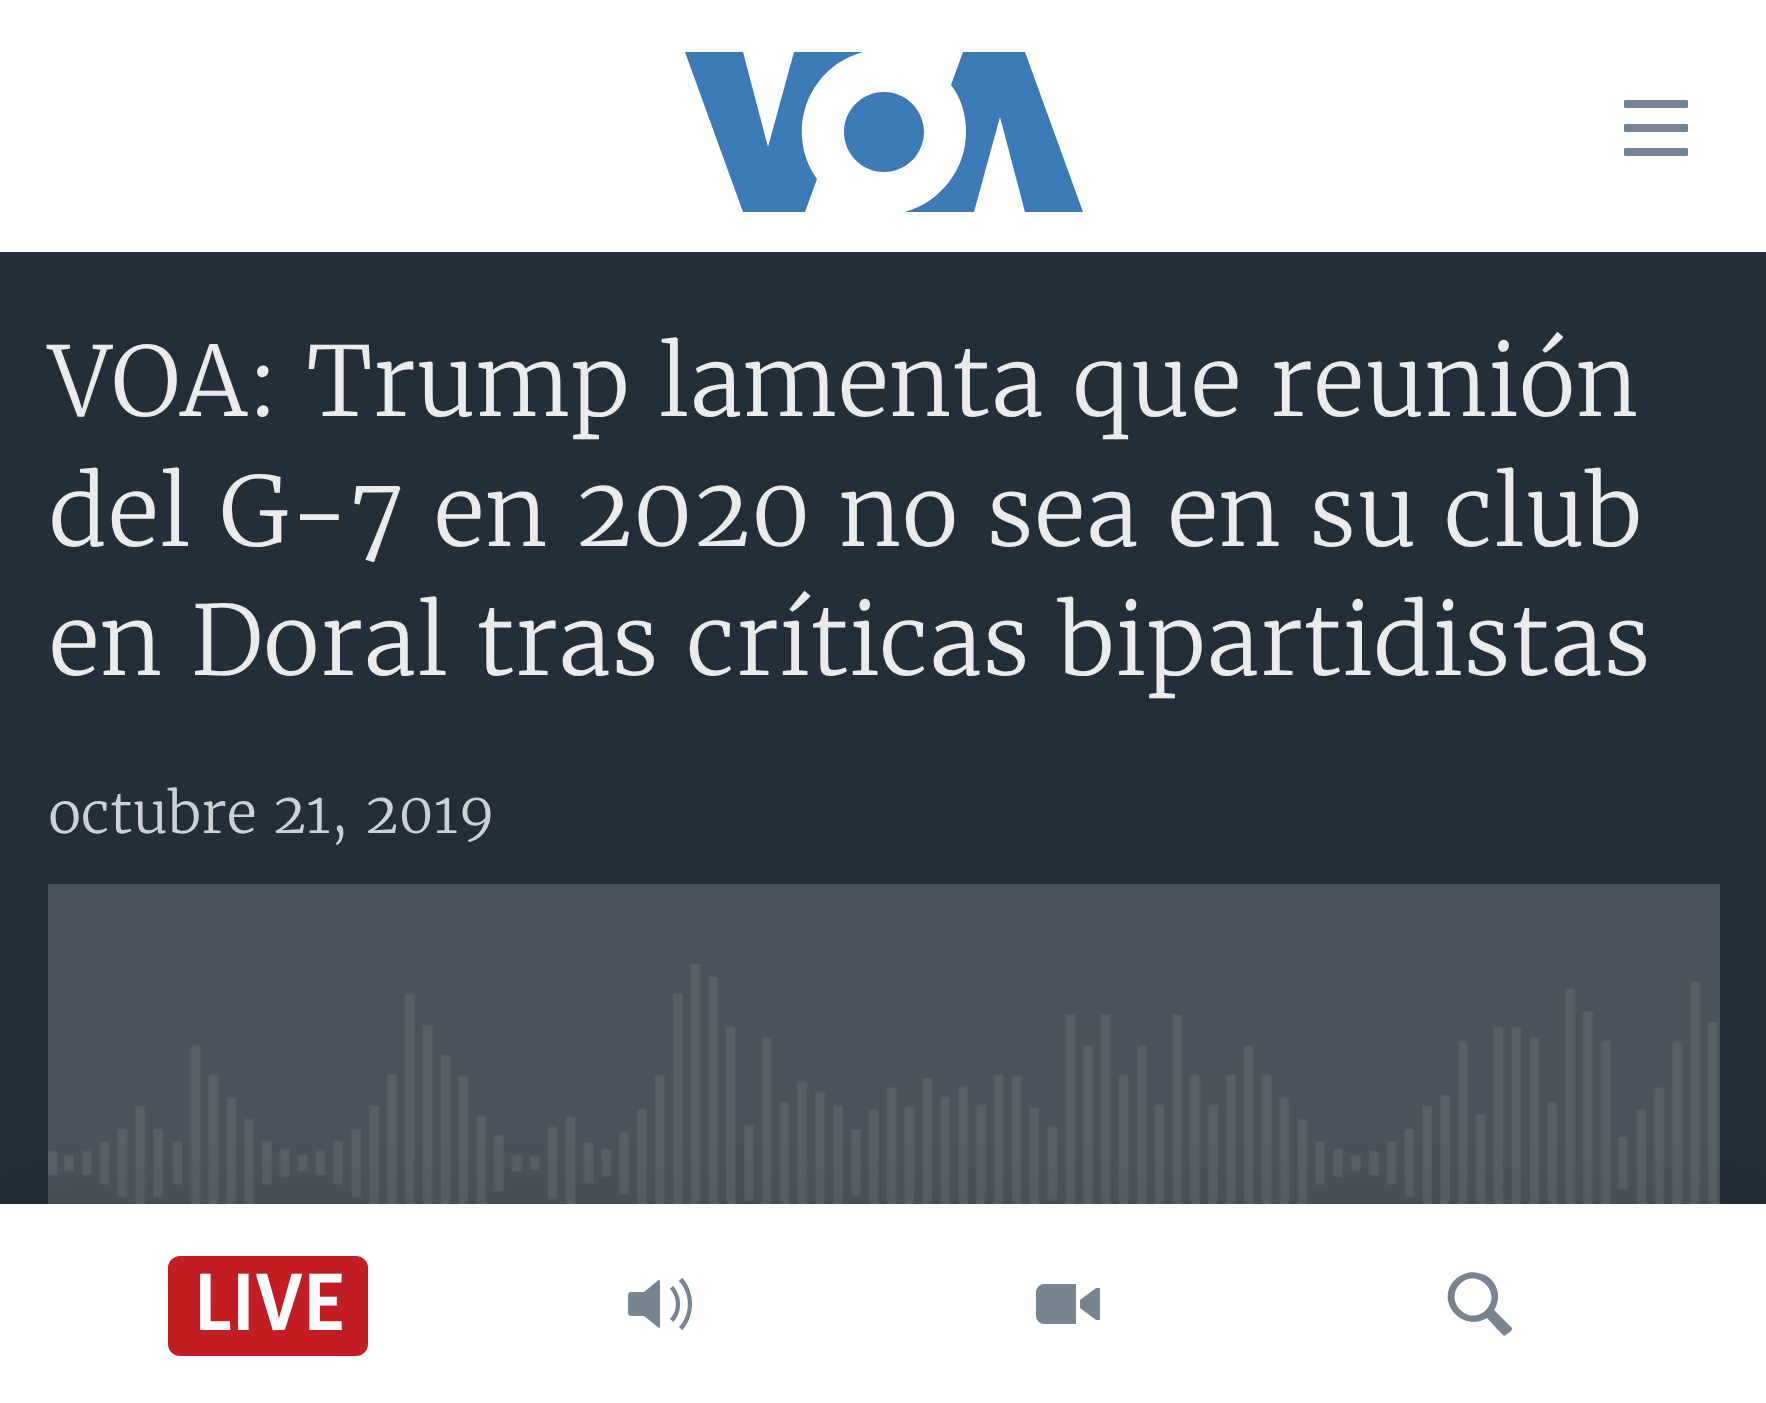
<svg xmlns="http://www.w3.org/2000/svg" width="1766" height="1403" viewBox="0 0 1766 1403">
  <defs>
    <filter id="blur1" x="-50%" y="-200%" width="200%" height="500%"><feGaussianBlur stdDeviation="40"/></filter>
  </defs>
  <rect width="100%" height="100%" fill="#ffffff"/>
  <rect x="0" y="252" width="1766" height="952" fill="#222f3a"/>
  <text x="48" y="416" font-family="Merriweather" font-size="96" font-weight="300" fill="#ebebeb">VOA: Trump lamenta que reunión</text>
  <text x="48" y="546" font-family="Merriweather" font-size="96" font-weight="300" fill="#ebebeb">del G-7 en 2020 no sea en su club</text>
  <text x="48" y="675" font-family="Merriweather" font-size="96" font-weight="300" fill="#ebebeb">en Doral tras críticas bipartidistas</text>
  <text x="48" y="833" font-family="Merriweather" font-size="56" font-weight="300" fill="#cbd1d6">octubre 21, 2019</text>
  <rect x="48" y="884" width="1672" height="320" fill="#49525a"/>
  <image x="48" y="964" width="1670" height="240" href="img1.png"/>
  <path d="M817 179L805 212H743L685 52H743L768 147L794 52H863C807 67 784 133 817 179ZM884 92C862 92 844 110 844 132C844 154 862 172 884 172C906 172 924 154 924 132C924 110 906 92 884 92ZM966 132C966 170 940 202 905 212H974L1000 117L1025 212H1083L1025 52H963L951 85C961 98 966 114 966 132Z" fill="#3b79b7"/>
  <image x="1624" y="100" width="64" height="56" href="img2.png"/>
  <rect x="0" y="1204" width="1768" height="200" fill="#000000" fill-opacity="0.1" filter="url(#blur1)"/>
  <rect x="0" y="1204" width="1766" height="199" fill="#ffffff"/>
  <rect x="168" y="1256" width="200" height="100" rx="12" fill="#c11d22"/>
  <text x="194" y="1330" font-family="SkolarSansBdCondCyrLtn" font-size="84" font-weight="bold" fill="#ffffff">LIVE</text>
  <image x="628" y="1278" width="64" height="52" href="img3.png"/>
  <image x="1036" y="1284" width="64" height="40" href="img4.png"/>
  <path d="M1512 1328L1494 1310C1502 1298 1498 1282 1485 1275C1478 1272 1470 1271 1464 1274C1459 1276 1455 1279 1452 1283C1437 1305 1464 1332 1487 1318L1498 1330C1503 1334 1503 1338 1507 1334C1508 1334 1513 1330 1512 1328ZM1486 1310C1469 1327 1443 1301 1460 1284C1477 1267 1503 1293 1486 1310Z" fill="#768492"/>
</svg>
